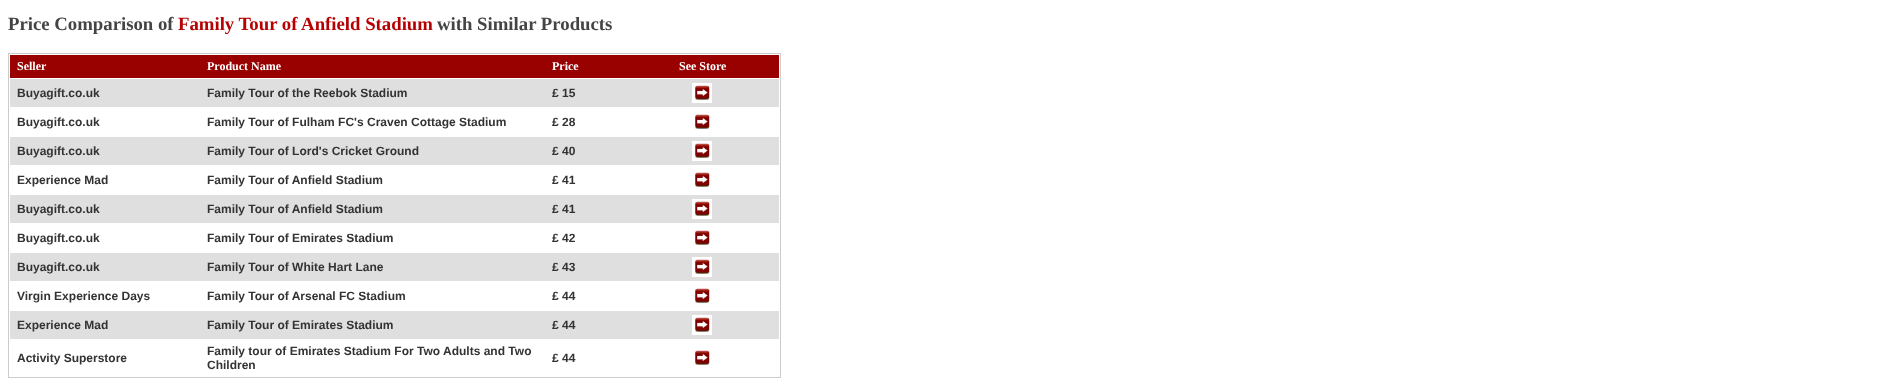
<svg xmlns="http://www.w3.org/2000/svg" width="1881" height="383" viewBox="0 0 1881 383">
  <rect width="100%" height="100%" fill="#ffffff"/>
  <text x="8" y="30" font-family="Liberation Serif" font-size="18.75" font-weight="bold" fill="#444444">Price Comparison of</text>
  <text x="178" y="30" font-family="Liberation Serif" font-size="18.75" font-weight="bold" fill="#b60002">Family Tour of Anfield Stadium</text>
  <text x="437" y="30" font-family="Liberation Serif" font-size="18.75" font-weight="bold" fill="#444444">with Similar Products</text>
  <rect x="8.5" y="53.5" width="772" height="324" fill="none" stroke="#cccccc"/>
  <rect x="10" y="55" width="769" height="23" fill="#990000"/>
  <text x="17" y="70" font-family="Liberation Serif" font-size="12" font-weight="bold" fill="#ffffff">Seller</text>
  <text x="207" y="70" font-family="Liberation Serif" font-size="12" font-weight="bold" fill="#ffffff">Product Name</text>
  <text x="552" y="70" font-family="Liberation Serif" font-size="12" font-weight="bold" fill="#ffffff">Price</text>
  <text x="679" y="70" font-family="Liberation Serif" font-size="12" font-weight="bold" fill="#ffffff">See Store</text>
  <rect x="10" y="79" width="769" height="28" fill="#dfdfdf"/>
  <text x="17" y="97" font-family="Liberation Sans" font-size="12" font-weight="bold" fill="#333333">Buyagift.co.uk</text>
  <text x="207" y="97" font-family="Liberation Sans" font-size="12" font-weight="bold" fill="#333333">Family Tour of the Reebok Stadium</text>
  <text x="552" y="97" font-family="Liberation Sans" font-size="12" font-weight="bold" fill="#333333">£ 15</text>
  <image x="692" y="83" width="20" height="20" href="img1.png"/>
  <text x="17" y="126" font-family="Liberation Sans" font-size="12" font-weight="bold" fill="#333333">Buyagift.co.uk</text>
  <text x="207" y="126" font-family="Liberation Sans" font-size="12" font-weight="bold" fill="#333333">Family Tour of Fulham FC's Craven Cottage Stadium</text>
  <text x="552" y="126" font-family="Liberation Sans" font-size="12" font-weight="bold" fill="#333333">£ 28</text>
  <image x="695" y="114" width="15" height="15" href="img2.png"/>
  <rect x="10" y="137" width="769" height="28" fill="#dfdfdf"/>
  <text x="17" y="155" font-family="Liberation Sans" font-size="12" font-weight="bold" fill="#333333">Buyagift.co.uk</text>
  <text x="207" y="155" font-family="Liberation Sans" font-size="12" font-weight="bold" fill="#333333">Family Tour of Lord's Cricket Ground</text>
  <text x="552" y="155" font-family="Liberation Sans" font-size="12" font-weight="bold" fill="#333333">£ 40</text>
  <image x="692" y="141" width="20" height="20" href="img3.png"/>
  <text x="17" y="184" font-family="Liberation Sans" font-size="12" font-weight="bold" fill="#333333">Experience Mad</text>
  <text x="207" y="184" font-family="Liberation Sans" font-size="12" font-weight="bold" fill="#333333">Family Tour of Anfield Stadium</text>
  <text x="552" y="184" font-family="Liberation Sans" font-size="12" font-weight="bold" fill="#333333">£ 41</text>
  <image x="695" y="172" width="15" height="15" href="img2.png"/>
  <rect x="10" y="195" width="769" height="28" fill="#dfdfdf"/>
  <text x="17" y="213" font-family="Liberation Sans" font-size="12" font-weight="bold" fill="#333333">Buyagift.co.uk</text>
  <text x="207" y="213" font-family="Liberation Sans" font-size="12" font-weight="bold" fill="#333333">Family Tour of Anfield Stadium</text>
  <text x="552" y="213" font-family="Liberation Sans" font-size="12" font-weight="bold" fill="#333333">£ 41</text>
  <image x="692" y="199" width="20" height="20" href="img3.png"/>
  <text x="17" y="242" font-family="Liberation Sans" font-size="12" font-weight="bold" fill="#333333">Buyagift.co.uk</text>
  <text x="207" y="242" font-family="Liberation Sans" font-size="12" font-weight="bold" fill="#333333">Family Tour of Emirates Stadium</text>
  <text x="552" y="242" font-family="Liberation Sans" font-size="12" font-weight="bold" fill="#333333">£ 42</text>
  <image x="695" y="230" width="15" height="15" href="img2.png"/>
  <rect x="10" y="253" width="769" height="28" fill="#dfdfdf"/>
  <text x="17" y="271" font-family="Liberation Sans" font-size="12" font-weight="bold" fill="#333333">Buyagift.co.uk</text>
  <text x="207" y="271" font-family="Liberation Sans" font-size="12" font-weight="bold" fill="#333333">Family Tour of White Hart Lane</text>
  <text x="552" y="271" font-family="Liberation Sans" font-size="12" font-weight="bold" fill="#333333">£ 43</text>
  <image x="692" y="257" width="20" height="20" href="img3.png"/>
  <text x="17" y="300" font-family="Liberation Sans" font-size="12" font-weight="bold" fill="#333333">Virgin Experience Days</text>
  <text x="207" y="300" font-family="Liberation Sans" font-size="12" font-weight="bold" fill="#333333">Family Tour of Arsenal FC Stadium</text>
  <text x="552" y="300" font-family="Liberation Sans" font-size="12" font-weight="bold" fill="#333333">£ 44</text>
  <image x="695" y="288" width="15" height="16" href="img4.png"/>
  <rect x="10" y="311" width="769" height="28" fill="#dfdfdf"/>
  <text x="17" y="329" font-family="Liberation Sans" font-size="12" font-weight="bold" fill="#333333">Experience Mad</text>
  <text x="207" y="329" font-family="Liberation Sans" font-size="12" font-weight="bold" fill="#333333">Family Tour of Emirates Stadium</text>
  <text x="552" y="329" font-family="Liberation Sans" font-size="12" font-weight="bold" fill="#333333">£ 44</text>
  <image x="692" y="315" width="20" height="20" href="img3.png"/>
  <text x="17" y="362" font-family="Liberation Sans" font-size="12" font-weight="bold" fill="#333333">Activity Superstore</text>
  <text x="207" y="355" font-family="Liberation Sans" font-size="12" font-weight="bold" fill="#333333">Family tour of Emirates Stadium For Two Adults and Two</text>
  <text x="207" y="369" font-family="Liberation Sans" font-size="12" font-weight="bold" fill="#333333">Children</text>
  <text x="552" y="362" font-family="Liberation Sans" font-size="12" font-weight="bold" fill="#333333">£ 44</text>
  <image x="695" y="350" width="15" height="15" href="img2.png"/>
</svg>
